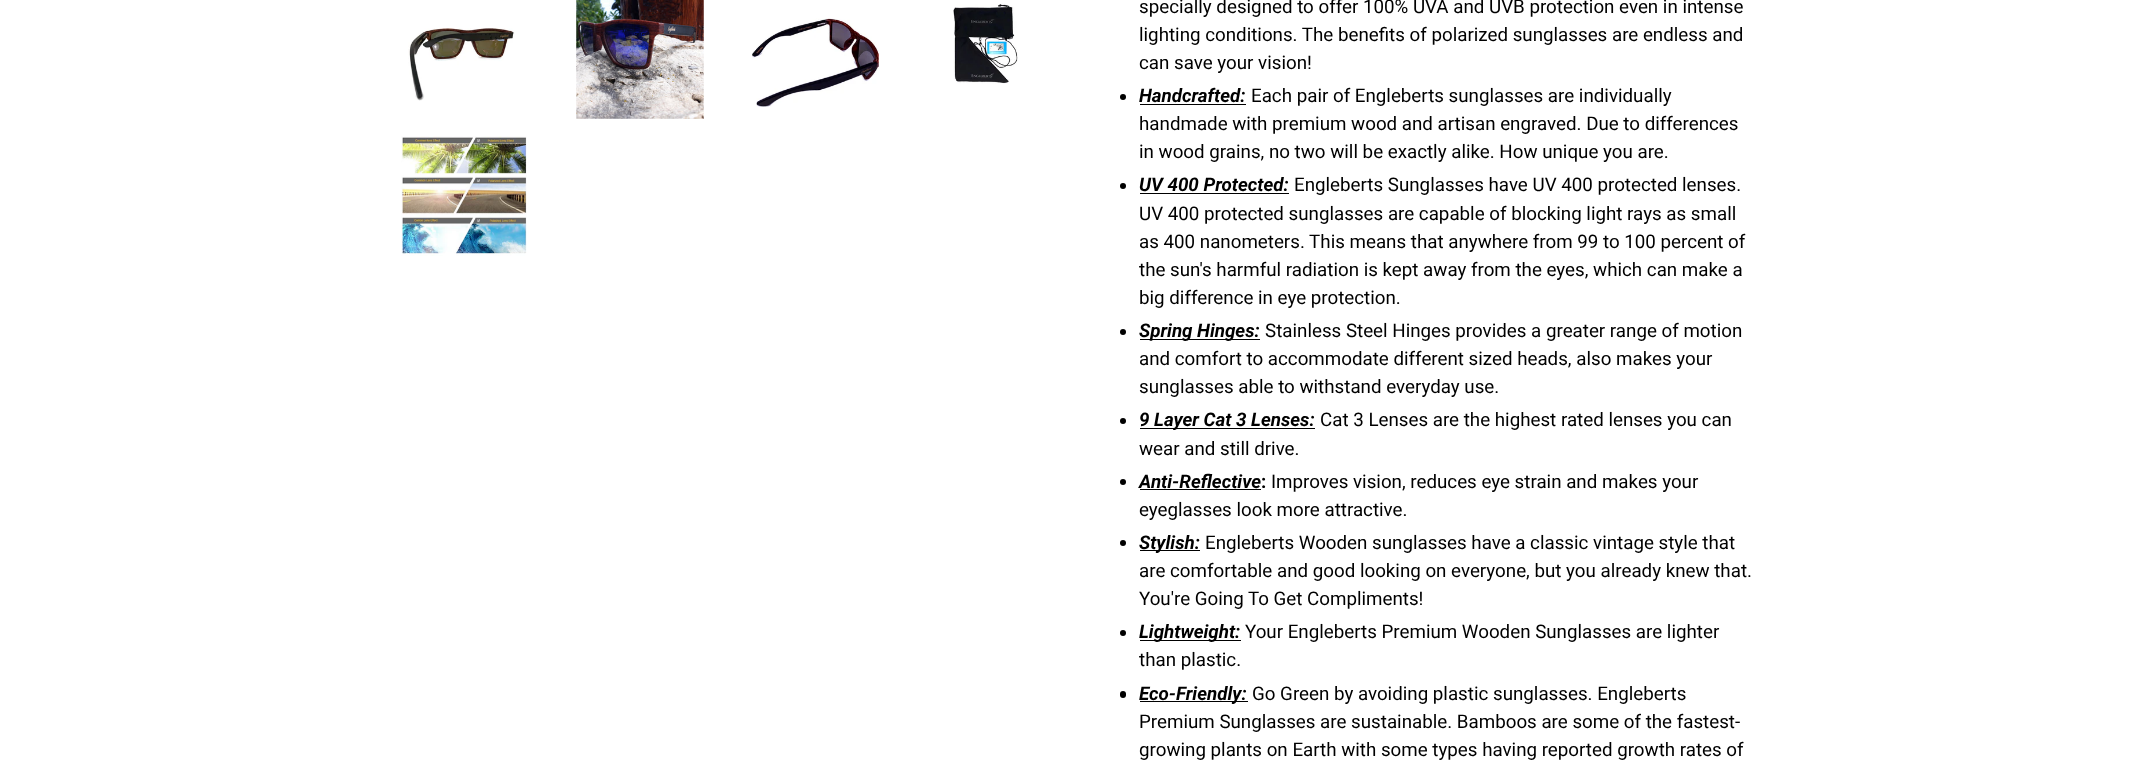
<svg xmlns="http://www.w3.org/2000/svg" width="2153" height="777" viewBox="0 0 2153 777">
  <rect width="100%" height="100%" fill="#ffffff"/>
  <image x="408" y="28" width="107" height="73" href="img1.png"/>
  <image x="576" y="0" width="128" height="119" href="img2.png"/>
  <image x="752" y="18" width="127" height="89" href="img3.png"/>
  <image x="953" y="3" width="65" height="81" href="img4.png"/>
  <image x="401" y="136" width="126" height="120" href="img5.png"/>
  <text x="1139" y="13" font-family="Roboto" font-size="18.75" fill="#000000">specially designed to offer 100% UVA and UVB protection even in intense</text>
  <text x="1139" y="41" font-family="Roboto" font-size="18.75" fill="#000000">lighting conditions. The benefits of polarized sunglasses are endless and</text>
  <text x="1139" y="69" font-family="Roboto" font-size="18.75" fill="#000000">can save your vision!</text>
  <circle cx="1123" cy="97" r="3" fill="#000000"/>
  <text x="1139" y="102" font-family="Roboto" font-size="18.75" font-weight="bold" font-style="italic" fill="#000000">Handcrafted:</text>
  <rect x="1140" y="104" width="106" height="1" fill="#000000"/>
  <text x="1251" y="102" font-family="Roboto" font-size="18.75" fill="#000000">Each pair of Engleberts sunglasses are individually</text>
  <text x="1139" y="130" font-family="Roboto" font-size="18.75" fill="#000000">handmade with premium wood and artisan engraved. Due to differences</text>
  <text x="1139" y="158" font-family="Roboto" font-size="18.75" fill="#000000">in wood grains, no two will be exactly alike. How unique you are.</text>
  <circle cx="1123" cy="186" r="3" fill="#000000"/>
  <text x="1139" y="191" font-family="Roboto" font-size="18.75" font-weight="bold" font-style="italic" fill="#000000">UV 400 Protected:</text>
  <rect x="1140" y="193" width="149" height="1" fill="#000000"/>
  <text x="1294" y="191" font-family="Roboto" font-size="18.75" fill="#000000">Engleberts Sunglasses have UV 400 protected lenses.</text>
  <text x="1139" y="220" font-family="Roboto" font-size="18.75" fill="#000000">UV 400 protected sunglasses are capable of blocking light rays as small</text>
  <text x="1139" y="248" font-family="Roboto" font-size="18.75" fill="#000000">as 400 nanometers. This means that anywhere from 99 to 100 percent of</text>
  <text x="1139" y="276" font-family="Roboto" font-size="18.75" fill="#000000">the sun's harmful radiation is kept away from the eyes, which can make a</text>
  <text x="1139" y="304" font-family="Roboto" font-size="18.75" fill="#000000">big difference in eye protection.</text>
  <circle cx="1123" cy="332" r="3" fill="#000000"/>
  <rect x="1140" y="339" width="120" height="1" fill="#000000"/>
  <text x="1139" y="337" font-family="Roboto" font-size="18.75" font-weight="bold" font-style="italic" fill="#000000">Spring Hinges:</text>
  <text x="1265" y="337" font-family="Roboto" font-size="18.75" fill="#000000">Stainless Steel Hinges provides a greater range of motion</text>
  <text x="1139" y="365" font-family="Roboto" font-size="18.75" fill="#000000">and comfort to accommodate different sized heads, also makes your</text>
  <text x="1139" y="393" font-family="Roboto" font-size="18.75" fill="#000000">sunglasses able to withstand everyday use.</text>
  <circle cx="1123" cy="421" r="3" fill="#000000"/>
  <rect x="1140" y="428" width="175" height="1" fill="#000000"/>
  <text x="1139" y="426" font-family="Roboto" font-size="18.75" font-weight="bold" font-style="italic" fill="#000000">9 Layer Cat 3 Lenses:</text>
  <text x="1320" y="426" font-family="Roboto" font-size="18.75" fill="#000000">Cat 3 Lenses are the highest rated lenses you can</text>
  <text x="1139" y="455" font-family="Roboto" font-size="18.75" fill="#000000">wear and still drive.</text>
  <circle cx="1123" cy="482" r="3" fill="#000000"/>
  <text x="1139" y="488" font-family="Roboto" font-size="18.75" font-weight="bold" font-style="italic" fill="#000000">Anti-Reflective</text>
  <rect x="1140" y="489" width="121" height="1" fill="#000000"/>
  <text x="1261" y="488" font-family="Roboto" font-size="18.75" font-weight="bold" fill="#000000">:</text>
  <text x="1271" y="488" font-family="Roboto" font-size="18.75" fill="#000000">Improves vision, reduces eye strain and makes your</text>
  <text x="1139" y="516" font-family="Roboto" font-size="18.75" fill="#000000">eyeglasses look more attractive.</text>
  <circle cx="1123" cy="543" r="3" fill="#000000"/>
  <rect x="1140" y="550" width="60" height="1" fill="#000000"/>
  <text x="1139" y="549" font-family="Roboto" font-size="18.75" font-weight="bold" font-style="italic" fill="#000000">Stylish:</text>
  <text x="1205" y="549" font-family="Roboto" font-size="18.75" fill="#000000">Engleberts Wooden sunglasses have a classic vintage style that</text>
  <text x="1139" y="577" font-family="Roboto" font-size="18.75" fill="#000000">are comfortable and good looking on everyone, but you already knew that.</text>
  <text x="1139" y="605" font-family="Roboto" font-size="18.75" fill="#000000">You're Going To Get Compliments!</text>
  <circle cx="1123" cy="633" r="3" fill="#000000"/>
  <rect x="1140" y="640" width="101" height="1" fill="#000000"/>
  <text x="1139" y="638" font-family="Roboto" font-size="18.75" font-weight="bold" font-style="italic" fill="#000000">Lightweight:</text>
  <text x="1245" y="638" font-family="Roboto" font-size="18.75" fill="#000000">Your Engleberts Premium Wooden Sunglasses are lighter</text>
  <text x="1139" y="666" font-family="Roboto" font-size="18.75" fill="#000000">than plastic.</text>
  <rect x="1120" y="691" width="6" height="7" rx="3" fill="#000000"/>
  <rect x="1140" y="701" width="108" height="1" fill="#000000"/>
  <text x="1139" y="700" font-family="Roboto" font-size="18.75" font-weight="bold" font-style="italic" fill="#000000">Eco-Friendly:</text>
  <text x="1252" y="700" font-family="Roboto" font-size="18.75" fill="#000000">Go Green by avoiding plastic sunglasses. Engleberts</text>
  <text x="1139" y="728" font-family="Roboto" font-size="18.75" fill="#000000">Premium Sunglasses are sustainable. Bamboos are some of the fastest-</text>
  <text x="1139" y="756" font-family="Roboto" font-size="18.75" fill="#000000">growing plants on Earth with some types having reported growth rates of</text>
</svg>
